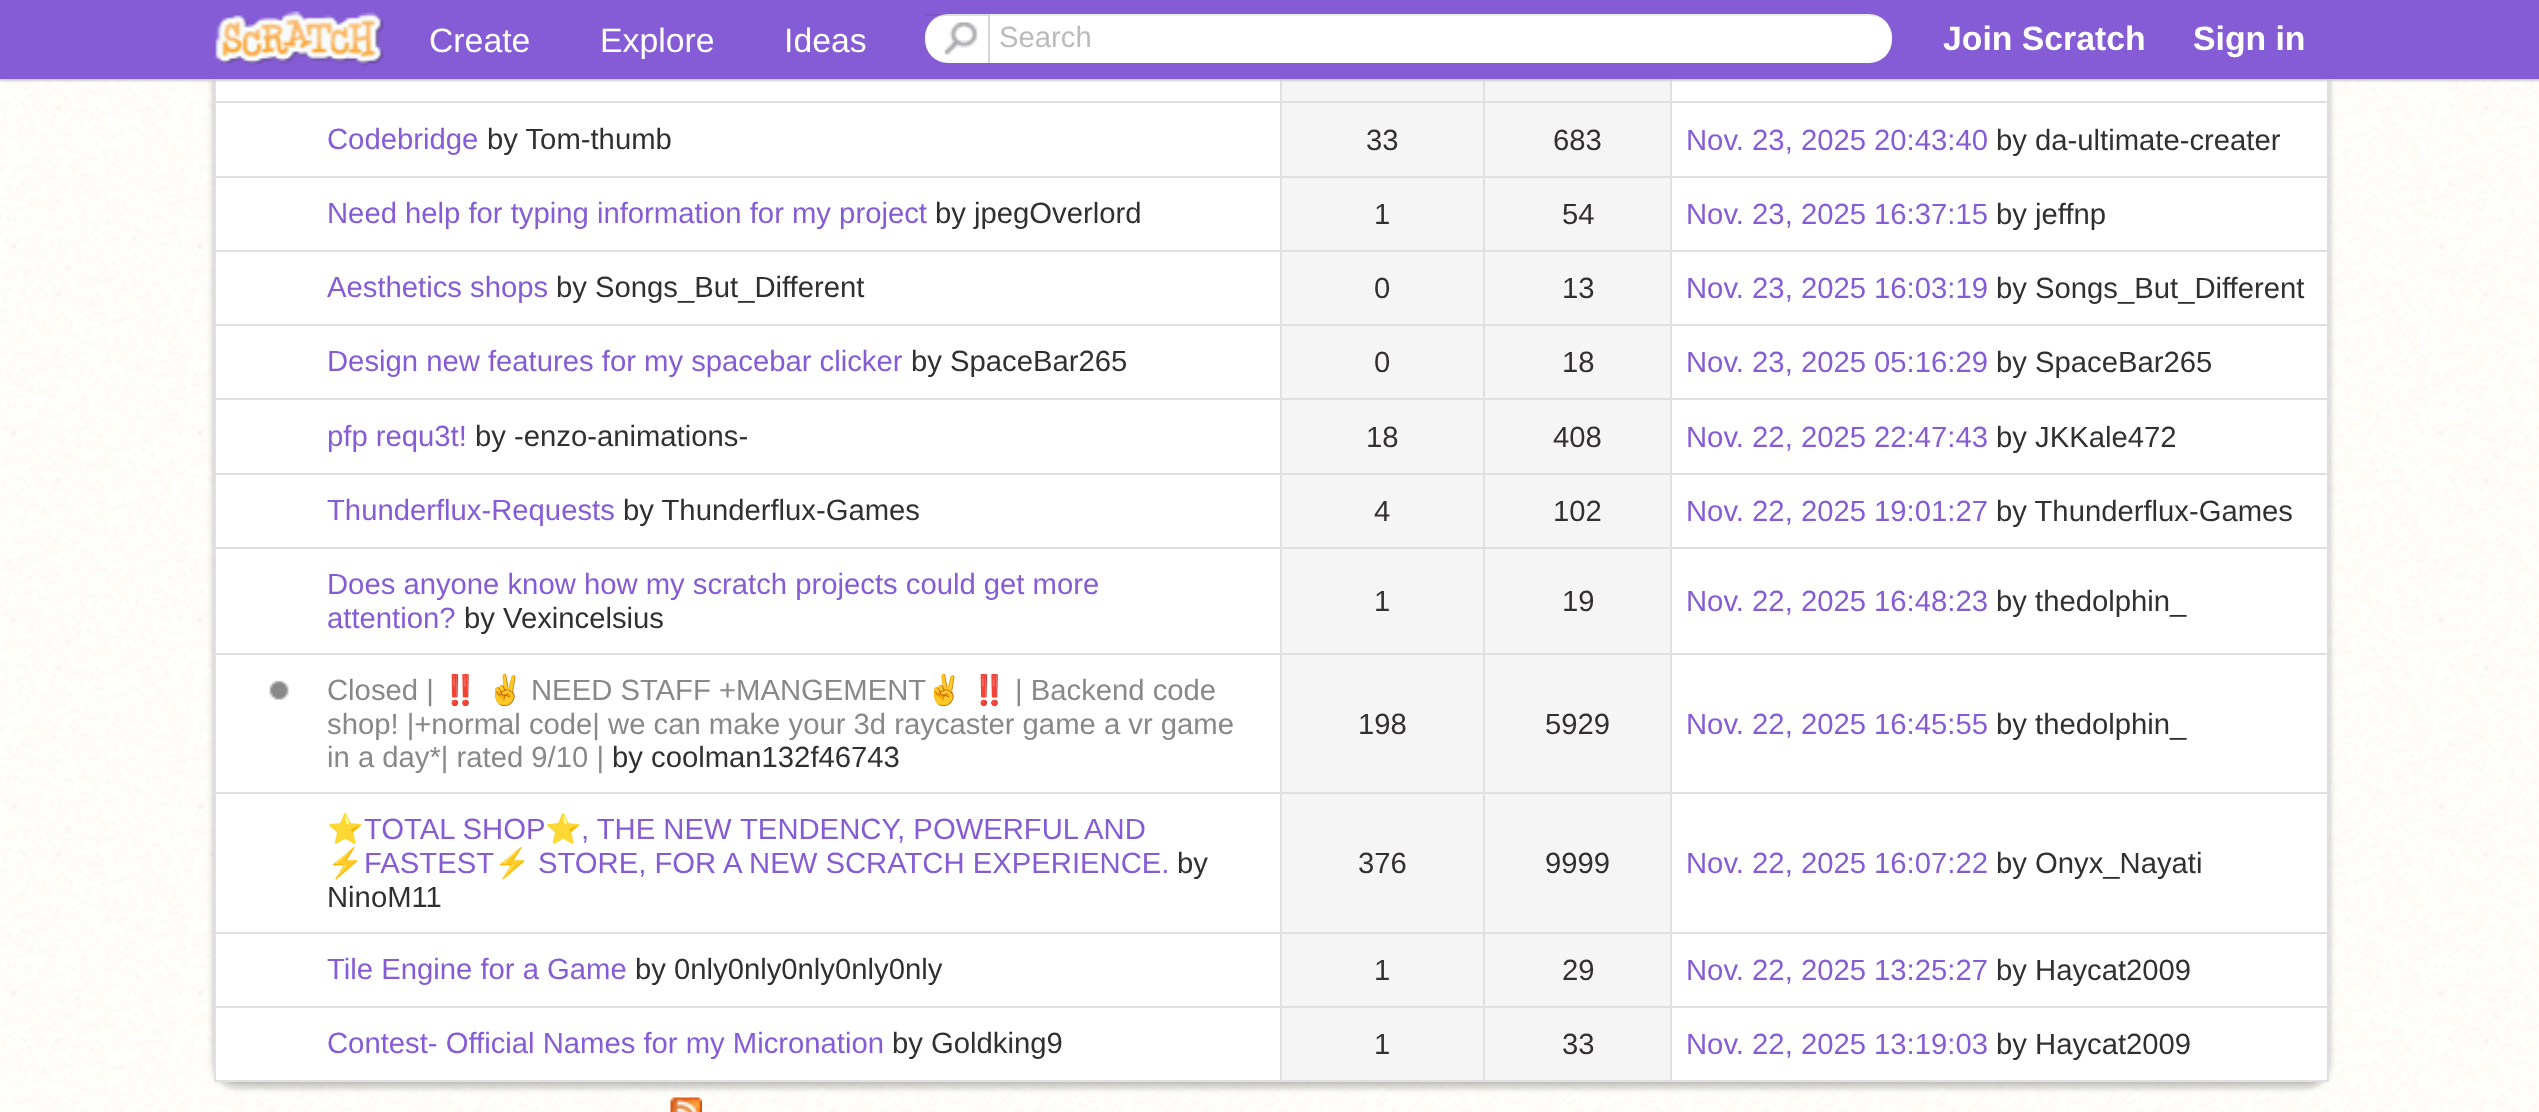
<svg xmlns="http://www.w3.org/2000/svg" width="2539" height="1112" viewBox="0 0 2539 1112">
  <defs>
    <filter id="blur1" x="-50%" y="-200%" width="200%" height="500%"><feGaussianBlur stdDeviation="3.5"/></filter>
    <filter id="blur2" x="-50%" y="-200%" width="200%" height="500%"><feGaussianBlur stdDeviation="1"/></filter>
  </defs>
  <rect width="100%" height="100%" fill="#ffffff"/>
  <image x="0" y="79" width="2539" height="1033" href="img1.png"/>
  <rect x="214" y="-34" width="2115" height="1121" rx="23" fill="#221919" fill-opacity="0.3" filter="url(#blur1)"/>
  <rect x="215" y="-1" width="2113" height="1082" fill="none" stroke="#e0e0e0" stroke-width="2"/>
  <rect x="216" y="79" width="2111" height="1001" fill="#ffffff"/>
  <rect x="1282" y="79" width="201" height="97" fill="#f5f5f5"/>
  <rect x="1485" y="79" width="185" height="97" fill="#f5f5f5"/>
  <rect x="1670" y="101" width="657" height="2" fill="#e0e0e0"/>
  <rect x="1670" y="176" width="657" height="2" fill="#e0e0e0"/>
  <rect x="1670" y="250" width="657" height="2" fill="#e0e0e0"/>
  <rect x="1670" y="324" width="657" height="2" fill="#e0e0e0"/>
  <rect x="1485" y="326" width="185" height="147" fill="#f5f5f5"/>
  <rect x="1670" y="398" width="657" height="2" fill="#e0e0e0"/>
  <rect x="1670" y="473" width="657" height="2" fill="#e0e0e0"/>
  <rect x="1670" y="547" width="657" height="2" fill="#e0e0e0"/>
  <rect x="1670" y="653" width="657" height="2" fill="#e0e0e0"/>
  <rect x="1670" y="792" width="657" height="2" fill="#e0e0e0"/>
  <rect x="1670" y="932" width="657" height="2" fill="#e0e0e0"/>
  <rect x="1670" y="1006" width="657" height="2" fill="#e0e0e0"/>
  <rect x="1670" y="1006" width="2" height="74" fill="#e0e0e0"/>
  <rect x="1483" y="1006" width="189" height="2" fill="#e0e0e0"/>
  <rect x="1670" y="932" width="2" height="76" fill="#e0e0e0"/>
  <rect x="1483" y="932" width="189" height="2" fill="#e0e0e0"/>
  <rect x="1670" y="792" width="2" height="142" fill="#e0e0e0"/>
  <rect x="1483" y="792" width="189" height="2" fill="#e0e0e0"/>
  <rect x="1670" y="653" width="2" height="141" fill="#e0e0e0"/>
  <rect x="1483" y="653" width="189" height="2" fill="#e0e0e0"/>
  <rect x="1670" y="547" width="2" height="108" fill="#e0e0e0"/>
  <rect x="1483" y="547" width="189" height="2" fill="#e0e0e0"/>
  <rect x="1670" y="473" width="2" height="76" fill="#e0e0e0"/>
  <rect x="1483" y="473" width="189" height="2" fill="#e0e0e0"/>
  <rect x="1670" y="398" width="2" height="77" fill="#e0e0e0"/>
  <rect x="1483" y="398" width="189" height="2" fill="#e0e0e0"/>
  <rect x="1670" y="324" width="2" height="77" fill="#e0e0e0"/>
  <rect x="1483" y="324" width="189" height="2" fill="#e0e0e0"/>
  <rect x="1670" y="250" width="2" height="76" fill="#e0e0e0"/>
  <rect x="1483" y="250" width="189" height="2" fill="#e0e0e0"/>
  <rect x="1670" y="176" width="2" height="76" fill="#e0e0e0"/>
  <rect x="1483" y="176" width="189" height="2" fill="#e0e0e0"/>
  <rect x="1670" y="101" width="2" height="77" fill="#e0e0e0"/>
  <rect x="1483" y="101" width="189" height="2" fill="#e0e0e0"/>
  <rect x="1282" y="326" width="201" height="147" fill="#f5f5f5"/>
  <rect x="1483" y="1006" width="2" height="74" fill="#e0e0e0"/>
  <rect x="1280" y="1006" width="205" height="2" fill="#e0e0e0"/>
  <rect x="1483" y="932" width="2" height="76" fill="#e0e0e0"/>
  <rect x="1280" y="932" width="205" height="2" fill="#e0e0e0"/>
  <rect x="1483" y="792" width="2" height="142" fill="#e0e0e0"/>
  <rect x="1280" y="792" width="205" height="2" fill="#e0e0e0"/>
  <rect x="1483" y="653" width="2" height="141" fill="#e0e0e0"/>
  <rect x="1280" y="653" width="205" height="2" fill="#e0e0e0"/>
  <rect x="1483" y="547" width="2" height="108" fill="#e0e0e0"/>
  <rect x="1280" y="547" width="205" height="2" fill="#e0e0e0"/>
  <rect x="1483" y="473" width="2" height="76" fill="#e0e0e0"/>
  <rect x="1280" y="473" width="205" height="2" fill="#e0e0e0"/>
  <rect x="1483" y="398" width="2" height="77" fill="#e0e0e0"/>
  <rect x="1280" y="398" width="205" height="2" fill="#e0e0e0"/>
  <rect x="1483" y="324" width="2" height="77" fill="#e0e0e0"/>
  <rect x="1280" y="324" width="205" height="2" fill="#e0e0e0"/>
  <rect x="1483" y="250" width="2" height="76" fill="#e0e0e0"/>
  <rect x="1280" y="250" width="205" height="2" fill="#e0e0e0"/>
  <rect x="1483" y="176" width="2" height="76" fill="#e0e0e0"/>
  <rect x="1280" y="176" width="205" height="2" fill="#e0e0e0"/>
  <rect x="1483" y="101" width="2" height="77" fill="#e0e0e0"/>
  <rect x="1280" y="101" width="205" height="2" fill="#e0e0e0"/>
  <rect x="1280" y="1006" width="2" height="74" fill="#e0e0e0"/>
  <rect x="216" y="1006" width="1067" height="2" fill="#e0e0e0"/>
  <rect x="1280" y="932" width="2" height="76" fill="#e0e0e0"/>
  <rect x="216" y="932" width="1067" height="2" fill="#e0e0e0"/>
  <rect x="1280" y="792" width="2" height="142" fill="#e0e0e0"/>
  <rect x="216" y="792" width="1067" height="2" fill="#e0e0e0"/>
  <rect x="1280" y="653" width="2" height="141" fill="#e0e0e0"/>
  <rect x="216" y="653" width="1067" height="2" fill="#e0e0e0"/>
  <rect x="1280" y="547" width="2" height="108" fill="#e0e0e0"/>
  <rect x="216" y="547" width="1067" height="2" fill="#e0e0e0"/>
  <rect x="1280" y="473" width="2" height="76" fill="#e0e0e0"/>
  <rect x="216" y="473" width="1067" height="2" fill="#e0e0e0"/>
  <rect x="1280" y="398" width="2" height="77" fill="#e0e0e0"/>
  <rect x="216" y="398" width="1067" height="2" fill="#e0e0e0"/>
  <rect x="1280" y="324" width="2" height="77" fill="#e0e0e0"/>
  <rect x="216" y="324" width="1067" height="2" fill="#e0e0e0"/>
  <rect x="1280" y="250" width="2" height="76" fill="#e0e0e0"/>
  <rect x="216" y="250" width="1067" height="2" fill="#e0e0e0"/>
  <rect x="1280" y="176" width="2" height="76" fill="#e0e0e0"/>
  <rect x="216" y="176" width="1067" height="2" fill="#e0e0e0"/>
  <rect x="1280" y="101" width="2" height="77" fill="#e0e0e0"/>
  <rect x="216" y="101" width="1067" height="2" fill="#e0e0e0"/>
  <rect x="1280" y="79" width="2" height="25" fill="#e0e0e0"/>
  <rect x="1483" y="79" width="2" height="25" fill="#e0e0e0"/>
  <rect x="1670" y="79" width="2" height="25" fill="#e0e0e0"/>
  <rect x="0" y="2" width="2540" height="79" fill="#cccccc" filter="url(#blur2)"/>
  <rect x="0" y="0" width="2539" height="79" fill="#855cd6"/>
  <image x="215" y="11" width="170" height="55" href="img2.png"/>
  <text x="429" y="52" font-family="Liberation Sans" font-size="33.75" fill="#ffffff">Create</text>
  <text x="600" y="52" font-family="Liberation Sans" font-size="33.75" fill="#ffffff">Explore</text>
  <text x="784" y="52" font-family="Liberation Sans" font-size="33.75" fill="#ffffff">Ideas</text>
  <rect x="925" y="14" width="967" height="49" rx="23" fill="#ffffff"/>
  <path d="M947 16H1870C1882 16 1892 26 1892 38V37C1892 24 1882 14 1869 14H948C935 14 925 24 925 37V38C925 26 935 16 947 16Z" fill="#000000" fill-opacity="0.07"/>
  <image x="944" y="22" width="34" height="33" href="img3.png"/>
  <rect x="925" y="14" width="63" height="2" fill="#000000" fill-opacity="0.06"/>
  <rect x="988" y="14" width="2" height="49" fill="#cccccc" fill-opacity="0.8"/>
  <text x="999" y="47" font-family="Liberation Sans" font-size="29.25" fill="#bbbbbb">Search</text>
  <text x="1943" y="50" font-family="Liberation Sans" font-size="33.75" font-weight="bold" fill="#ffffff">Join Scratch</text>
  <text x="2193" y="50" font-family="Liberation Sans" font-size="33.75" font-weight="bold" fill="#ffffff">Sign in</text>
  <text x="327" y="149" font-family="Liberation Sans" font-size="29.25" fill="#855cd6">Codebridge</text>
  <text x="487" y="149" font-family="Liberation Sans" font-size="29.25" fill="#322f31">by Tom-thumb</text>
  <text x="1366" y="150" font-family="Liberation Sans" font-size="29.25" fill="#322f31">33</text>
  <text x="1553" y="150" font-family="Liberation Sans" font-size="29.25" fill="#322f31">683</text>
  <text x="1686" y="150" font-family="Liberation Sans" font-size="29.25" fill="#855cd6">Nov. 23, 2025 20:43:40</text>
  <text x="1996" y="150" font-family="Liberation Sans" font-size="29.25" fill="#322f31">by da-ultimate-creater</text>
  <text x="327" y="223" font-family="Liberation Sans" font-size="29.25" fill="#855cd6">Need help for typing information for my project</text>
  <text x="935" y="223" font-family="Liberation Sans" font-size="29.25" fill="#322f31">by jpegOverlord</text>
  <rect x="1282" y="178" width="201" height="72" fill="#f5f5f5"/>
  <text x="1374" y="224" font-family="Liberation Sans" font-size="29.25" fill="#322f31">1</text>
  <rect x="1485" y="178" width="185" height="72" fill="#f5f5f5"/>
  <text x="1562" y="224" font-family="Liberation Sans" font-size="29.25" fill="#322f31">54</text>
  <text x="1686" y="224" font-family="Liberation Sans" font-size="29.25" fill="#855cd6">Nov. 23, 2025 16:37:15</text>
  <text x="1996" y="224" font-family="Liberation Sans" font-size="29.25" fill="#322f31">by jeffnp</text>
  <text x="327" y="297" font-family="Liberation Sans" font-size="29.25" fill="#855cd6">Aesthetics shops</text>
  <text x="556" y="297" font-family="Liberation Sans" font-size="29.25" fill="#322f31">by Songs_But_Different</text>
  <rect x="1282" y="252" width="201" height="72" fill="#f5f5f5"/>
  <text x="1374" y="298" font-family="Liberation Sans" font-size="29.25" fill="#322f31">0</text>
  <rect x="1485" y="252" width="185" height="72" fill="#f5f5f5"/>
  <text x="1562" y="298" font-family="Liberation Sans" font-size="29.25" fill="#322f31">13</text>
  <text x="1686" y="298" font-family="Liberation Sans" font-size="29.25" fill="#855cd6">Nov. 23, 2025 16:03:19</text>
  <text x="1996" y="298" font-family="Liberation Sans" font-size="29.25" fill="#322f31">by Songs_But_Different</text>
  <text x="327" y="371" font-family="Liberation Sans" font-size="29.25" fill="#855cd6">Design new features for my spacebar clicker</text>
  <text x="911" y="371" font-family="Liberation Sans" font-size="29.25" fill="#322f31">by SpaceBar265</text>
  <text x="1374" y="372" font-family="Liberation Sans" font-size="29.25" fill="#322f31">0</text>
  <text x="1562" y="372" font-family="Liberation Sans" font-size="29.25" fill="#322f31">18</text>
  <text x="1686" y="372" font-family="Liberation Sans" font-size="29.25" fill="#855cd6">Nov. 23, 2025 05:16:29</text>
  <text x="1996" y="372" font-family="Liberation Sans" font-size="29.25" fill="#322f31">by SpaceBar265</text>
  <text x="327" y="446" font-family="Liberation Sans" font-size="29.25" fill="#855cd6">pfp requ3t!</text>
  <text x="475" y="446" font-family="Liberation Sans" font-size="29.25" fill="#322f31">by -enzo-animations-</text>
  <text x="1366" y="447" font-family="Liberation Sans" font-size="29.25" fill="#322f31">18</text>
  <text x="1553" y="447" font-family="Liberation Sans" font-size="29.25" fill="#322f31">408</text>
  <text x="1686" y="447" font-family="Liberation Sans" font-size="29.25" fill="#855cd6">Nov. 22, 2025 22:47:43</text>
  <text x="1996" y="447" font-family="Liberation Sans" font-size="29.25" fill="#322f31">by JKKale472</text>
  <text x="327" y="520" font-family="Liberation Sans" font-size="29.25" fill="#855cd6">Thunderflux-Requests</text>
  <text x="623" y="520" font-family="Liberation Sans" font-size="29.25" fill="#322f31">by Thunderflux-Games</text>
  <rect x="1282" y="475" width="201" height="72" fill="#f5f5f5"/>
  <text x="1374" y="521" font-family="Liberation Sans" font-size="29.25" fill="#322f31">4</text>
  <rect x="1485" y="475" width="185" height="72" fill="#f5f5f5"/>
  <text x="1553" y="521" font-family="Liberation Sans" font-size="29.25" fill="#322f31">102</text>
  <text x="1686" y="521" font-family="Liberation Sans" font-size="29.25" fill="#855cd6">Nov. 22, 2025 19:01:27</text>
  <text x="1996" y="521" font-family="Liberation Sans" font-size="29.25" fill="#322f31">by Thunderflux-Games</text>
  <text x="327" y="594" font-family="Liberation Sans" font-size="29.25" fill="#855cd6">Does anyone know how my scratch projects could get more</text>
  <text x="327" y="628" font-family="Liberation Sans" font-size="29.25" fill="#855cd6">attention?</text>
  <text x="464" y="628" font-family="Liberation Sans" font-size="29.25" fill="#322f31">by Vexincelsius</text>
  <rect x="1282" y="549" width="201" height="104" fill="#f5f5f5"/>
  <text x="1374" y="611" font-family="Liberation Sans" font-size="29.25" fill="#322f31">1</text>
  <rect x="1485" y="549" width="185" height="104" fill="#f5f5f5"/>
  <text x="1562" y="611" font-family="Liberation Sans" font-size="29.25" fill="#322f31">19</text>
  <text x="1686" y="611" font-family="Liberation Sans" font-size="29.25" fill="#855cd6">Nov. 22, 2025 16:48:23</text>
  <text x="1996" y="611" font-family="Liberation Sans" font-size="29.25" fill="#322f31">by thedolphin_</text>
  <image x="269" y="680" width="20" height="20" href="img4.png"/>
  <text x="327" y="700" font-family="Liberation Sans" font-size="29.25" fill="#888888">Closed |</text>
  <text x="442" y="700" font-family="Noto Color Emoji" font-size="29.25" fill="#888888">‼️</text>
  <text x="487" y="700" font-family="Noto Color Emoji" font-size="29.25" fill="#888888">✌️</text>
  <text x="531" y="700" font-family="Liberation Sans" font-size="29.25" fill="#888888">NEED STAFF +MANGEMENT</text>
  <text x="926" y="700" font-family="Noto Color Emoji" font-size="29.25" fill="#888888">✌️</text>
  <text x="971" y="700" font-family="Noto Color Emoji" font-size="29.25" fill="#888888">‼️</text>
  <text x="1015" y="700" font-family="Liberation Sans" font-size="29.25" fill="#888888">| Backend code</text>
  <text x="327" y="734" font-family="Liberation Sans" font-size="29.25" fill="#888888">shop! |+normal code| we can make your 3d raycaster game a vr game</text>
  <text x="327" y="767" font-family="Liberation Sans" font-size="29.25" fill="#888888">in a day*| rated 9/10 |</text>
  <text x="612" y="767" font-family="Liberation Sans" font-size="29.25" fill="#322f31">by coolman132f46743</text>
  <rect x="1282" y="655" width="201" height="137" fill="#f5f5f5"/>
  <text x="1358" y="734" font-family="Liberation Sans" font-size="29.25" fill="#322f31">198</text>
  <rect x="1485" y="655" width="185" height="137" fill="#f5f5f5"/>
  <text x="1545" y="734" font-family="Liberation Sans" font-size="29.25" fill="#322f31">5929</text>
  <text x="1686" y="734" font-family="Liberation Sans" font-size="29.25" fill="#855cd6">Nov. 22, 2025 16:45:55</text>
  <text x="1996" y="734" font-family="Liberation Sans" font-size="29.25" fill="#322f31">by thedolphin_</text>
  <text x="327" y="839" font-family="Noto Color Emoji" font-size="29.25" fill="#855cd6">⭐</text>
  <text x="364" y="839" font-family="Liberation Sans" font-size="29.25" fill="#855cd6">TOTAL SHOP</text>
  <text x="545" y="839" font-family="Noto Color Emoji" font-size="29.25" fill="#855cd6">⭐</text>
  <text x="581" y="839" font-family="Liberation Sans" font-size="29.25" fill="#855cd6">, THE NEW</text>
  <text x="740" y="839" font-family="Liberation Sans" font-size="29.25" fill="#855cd6">TENDENCY, POWERFUL</text>
  <text x="1084" y="839" font-family="Liberation Sans" font-size="29.25" fill="#855cd6">AND</text>
  <text x="327" y="873" font-family="Noto Color Emoji" font-size="29.25" fill="#855cd6">⚡</text>
  <text x="364" y="873" font-family="Liberation Sans" font-size="29.25" fill="#855cd6">FASTEST</text>
  <text x="494" y="873" font-family="Noto Color Emoji" font-size="29.25" fill="#855cd6">⚡</text>
  <text x="538" y="873" font-family="Liberation Sans" font-size="29.25" fill="#855cd6">STORE, FOR</text>
  <text x="723" y="873" font-family="Liberation Sans" font-size="29.25" fill="#855cd6">A NEW SCRATCH EXPERIENCE.</text>
  <text x="1177" y="873" font-family="Liberation Sans" font-size="29.25" fill="#322f31">by</text>
  <text x="327" y="907" font-family="Liberation Sans" font-size="29.25" fill="#322f31">NinoM11</text>
  <rect x="1282" y="794" width="201" height="138" fill="#f5f5f5"/>
  <text x="1358" y="873" font-family="Liberation Sans" font-size="29.25" fill="#322f31">376</text>
  <rect x="1485" y="794" width="185" height="138" fill="#f5f5f5"/>
  <text x="1545" y="873" font-family="Liberation Sans" font-size="29.25" fill="#322f31">9999</text>
  <text x="1686" y="873" font-family="Liberation Sans" font-size="29.25" fill="#855cd6">Nov. 22, 2025 16:07:22</text>
  <text x="1996" y="873" font-family="Liberation Sans" font-size="29.25" fill="#322f31">by Onyx_Nayati</text>
  <text x="327" y="979" font-family="Liberation Sans" font-size="29.25" fill="#855cd6">Tile Engine for a Game</text>
  <text x="635" y="979" font-family="Liberation Sans" font-size="29.25" fill="#322f31">by 0nly0nly0nly0nly0nly</text>
  <rect x="1282" y="934" width="201" height="72" fill="#f5f5f5"/>
  <text x="1374" y="980" font-family="Liberation Sans" font-size="29.25" fill="#322f31">1</text>
  <rect x="1485" y="934" width="185" height="72" fill="#f5f5f5"/>
  <text x="1562" y="980" font-family="Liberation Sans" font-size="29.25" fill="#322f31">29</text>
  <text x="1686" y="980" font-family="Liberation Sans" font-size="29.25" fill="#855cd6">Nov. 22, 2025 13:25:27</text>
  <text x="1996" y="980" font-family="Liberation Sans" font-size="29.25" fill="#322f31">by Haycat2009</text>
  <text x="327" y="1053" font-family="Liberation Sans" font-size="29.25" fill="#855cd6">Contest- Official Names for my Micronation</text>
  <text x="892" y="1053" font-family="Liberation Sans" font-size="29.25" fill="#322f31">by Goldking9</text>
  <rect x="1282" y="1008" width="201" height="72" fill="#f5f5f5"/>
  <text x="1374" y="1054" font-family="Liberation Sans" font-size="29.25" fill="#322f31">1</text>
  <rect x="1485" y="1008" width="185" height="72" fill="#f5f5f5"/>
  <text x="1562" y="1054" font-family="Liberation Sans" font-size="29.25" fill="#322f31">33</text>
  <text x="1686" y="1054" font-family="Liberation Sans" font-size="29.25" fill="#855cd6">Nov. 22, 2025 13:19:03</text>
  <text x="1996" y="1054" font-family="Liberation Sans" font-size="29.25" fill="#322f31">by Haycat2009</text>
  <image x="670" y="1097" width="32" height="15" href="img5.png"/>
</svg>
